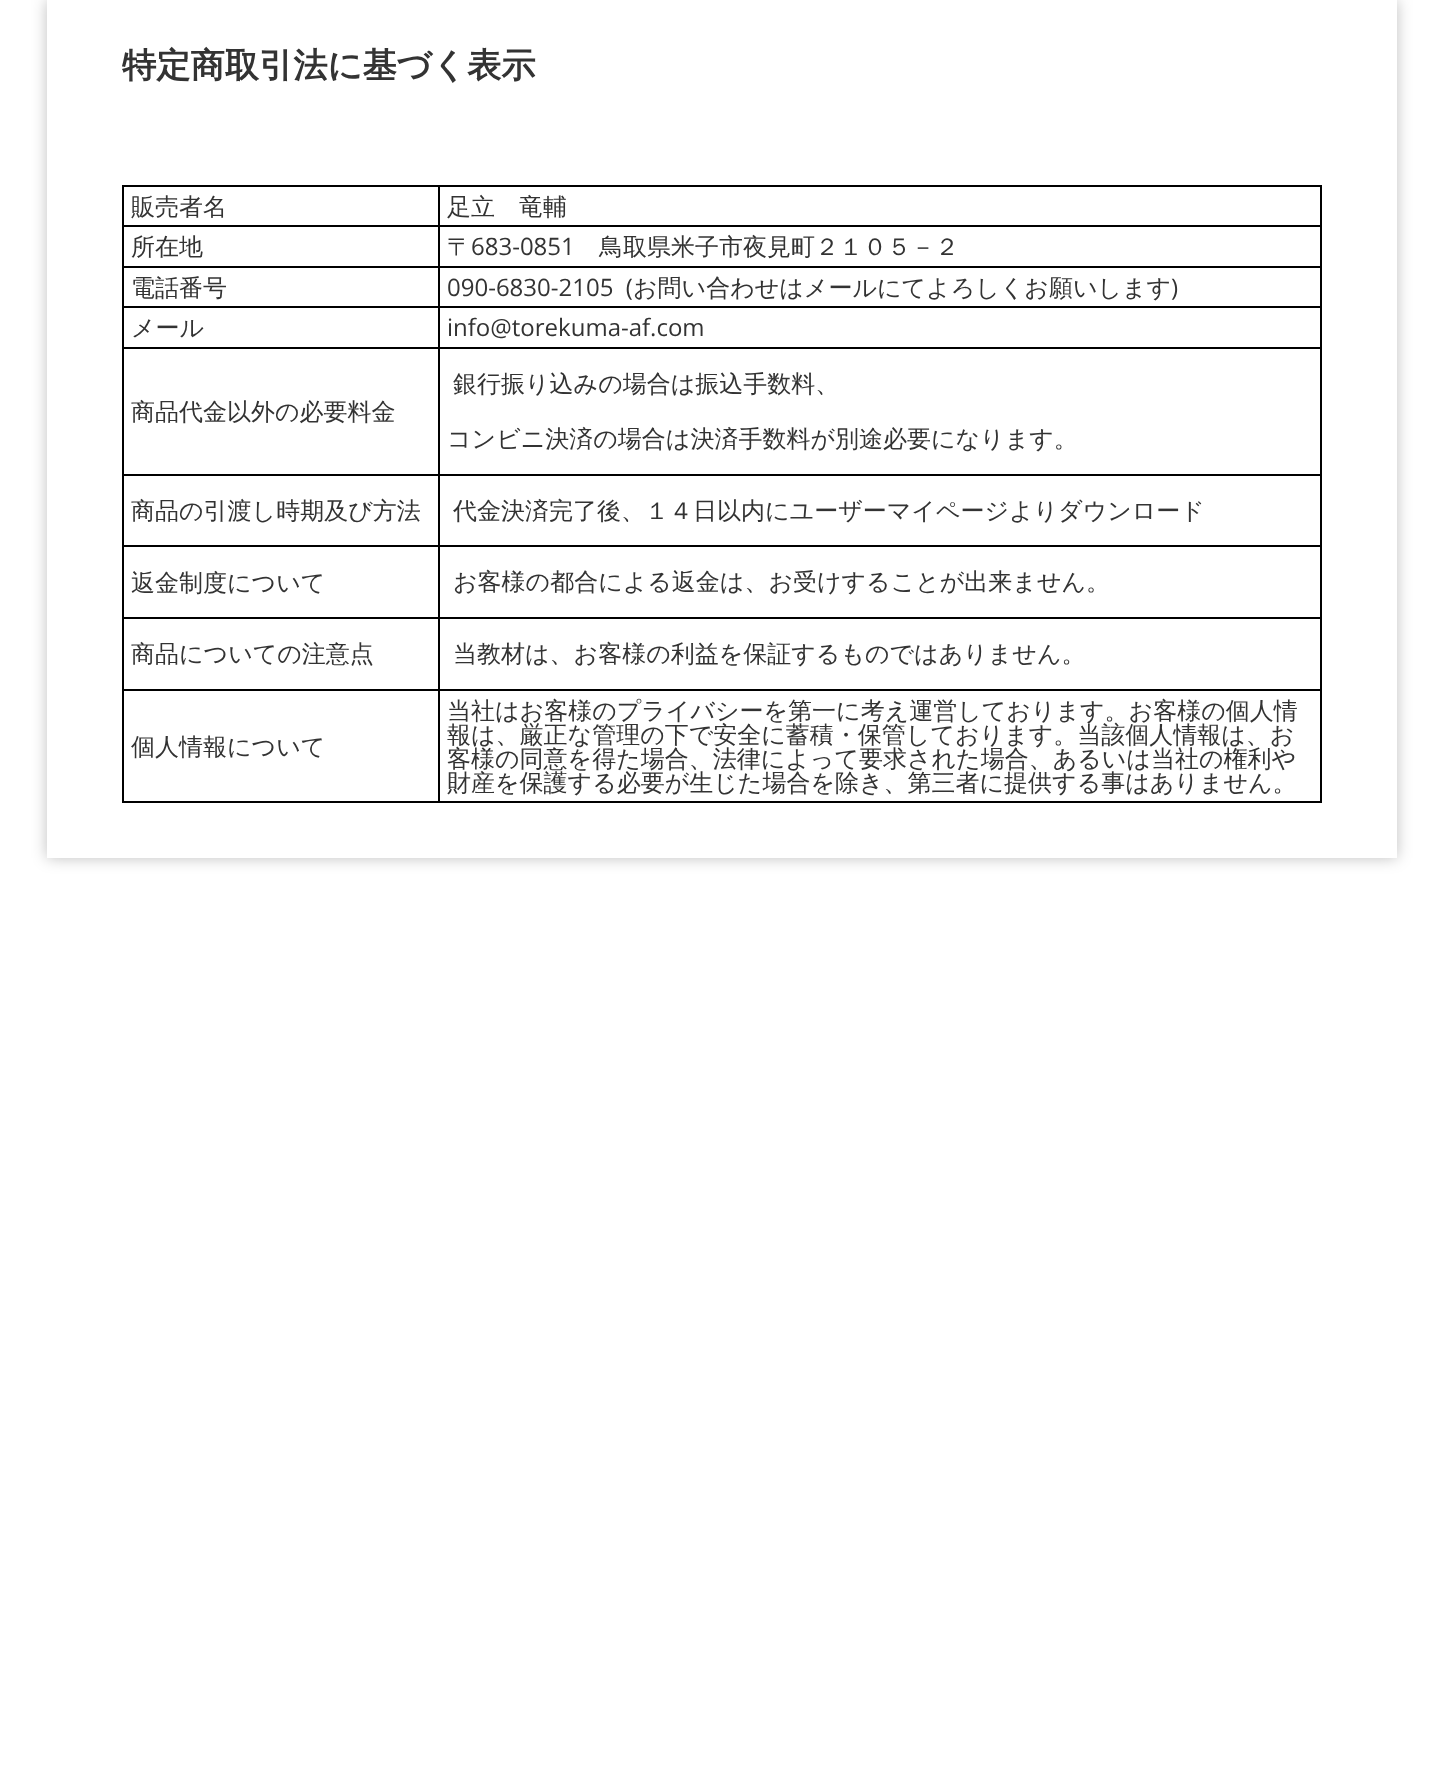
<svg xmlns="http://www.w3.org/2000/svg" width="1443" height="1789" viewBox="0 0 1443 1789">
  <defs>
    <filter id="blur1" x="-50%" y="-200%" width="200%" height="500%"><feGaussianBlur stdDeviation="7.5"/></filter>
  </defs>
  <rect width="100%" height="100%" fill="#ffffff"/>
  <rect x="47" y="0" width="1350" height="858" fill="#000000" fill-opacity="0.25" filter="url(#blur1)"/>
  <rect x="47" y="0" width="1350" height="858" fill="#ffffff"/>
  <text x="122" y="77" font-family="WenQuanYi Zen Hei" font-size="34.25" font-weight="bold" fill="#333333">特定商取引法に基づく表示</text>
  <rect x="122" y="185" width="1200" height="2" fill="#000000"/>
  <rect x="1320" y="185" width="2" height="618" fill="#000000"/>
  <rect x="122" y="801" width="1200" height="2" fill="#000000"/>
  <rect x="122" y="185" width="2" height="618" fill="#000000"/>
  <rect x="438" y="689" width="2" height="114" fill="#000000"/>
  <rect x="438" y="689" width="884" height="2" fill="#000000"/>
  <rect x="438" y="617" width="2" height="73" fill="#000000"/>
  <rect x="438" y="617" width="884" height="2" fill="#000000"/>
  <rect x="438" y="545" width="2" height="73" fill="#000000"/>
  <rect x="438" y="545" width="884" height="2" fill="#000000"/>
  <rect x="438" y="474" width="2" height="72" fill="#000000"/>
  <rect x="438" y="474" width="884" height="2" fill="#000000"/>
  <rect x="438" y="347" width="2" height="129" fill="#000000"/>
  <rect x="438" y="347" width="884" height="2" fill="#000000"/>
  <rect x="438" y="306" width="2" height="42" fill="#000000"/>
  <rect x="438" y="306" width="884" height="2" fill="#000000"/>
  <rect x="438" y="266" width="2" height="42" fill="#000000"/>
  <rect x="438" y="266" width="884" height="2" fill="#000000"/>
  <rect x="438" y="225" width="2" height="42" fill="#000000"/>
  <rect x="438" y="225" width="884" height="2" fill="#000000"/>
  <rect x="438" y="185" width="2" height="42" fill="#000000"/>
  <rect x="122" y="225" width="318" height="2" fill="#000000"/>
  <text x="131" y="215" font-family="WenQuanYi Zen Hei" font-size="24" font-weight="500" fill="#333333">販売者名</text>
  <text x="447" y="215" font-family="WenQuanYi Zen Hei" font-size="24" font-weight="500" fill="#333333">足立　竜輔</text>
  <rect x="122" y="266" width="318" height="2" fill="#000000"/>
  <text x="131" y="255" font-family="WenQuanYi Zen Hei" font-size="24" font-weight="500" fill="#333333">所在地</text>
  <text x="447" y="255" font-family="WenQuanYi Zen Hei" font-size="24" font-weight="500" fill="#333333">〒</text>
  <text x="471" y="255" font-family="Open Sans" font-size="24" fill="#333333">683-0851</text>
  <text x="599" y="255" font-family="WenQuanYi Zen Hei" font-size="24" font-weight="500" fill="#333333">鳥取県米子市夜見町２１０５－２</text>
  <rect x="122" y="306" width="318" height="2" fill="#000000"/>
  <text x="131" y="296" font-family="WenQuanYi Zen Hei" font-size="24" font-weight="500" fill="#333333">電話番号</text>
  <text x="447" y="296" font-family="Open Sans" font-size="24" fill="#333333" xml:space="preserve">090-6830-2105  (</text>
  <text x="633" y="296" font-family="WenQuanYi Zen Hei" font-size="24" font-weight="500" fill="#333333">お問い合わせはメールにてよろしくお願いします</text>
  <text x="1171" y="296" font-family="Open Sans" font-size="24" fill="#333333">)</text>
  <rect x="122" y="347" width="318" height="2" fill="#000000"/>
  <text x="131" y="336" font-family="WenQuanYi Zen Hei" font-size="24" font-weight="500" fill="#333333">メール</text>
  <text x="447" y="336" font-family="Open Sans" font-size="24" fill="#333333">info@torekuma-af.com</text>
  <rect x="122" y="474" width="318" height="2" fill="#000000"/>
  <text x="131" y="420" font-family="WenQuanYi Zen Hei" font-size="24" font-weight="500" fill="#333333">商品代金以外の必要料金</text>
  <text x="453" y="392" font-family="WenQuanYi Zen Hei" font-size="24" font-weight="500" fill="#333333">銀行振り込みの場合は振込手数料、</text>
  <text x="447" y="447" font-family="WenQuanYi Zen Hei" font-size="24" font-weight="500" fill="#333333">コンビニ決済の場合は決済手数料が別途必要になります。</text>
  <rect x="122" y="545" width="318" height="2" fill="#000000"/>
  <text x="131" y="519" font-family="WenQuanYi Zen Hei" font-size="24" font-weight="500" fill="#333333">商品の引渡し時期及び方法</text>
  <text x="453" y="519" font-family="WenQuanYi Zen Hei" font-size="24" font-weight="500" fill="#333333">代金決済完了後、１４日以内にユーザーマイページよりダウンロード</text>
  <rect x="122" y="617" width="318" height="2" fill="#000000"/>
  <text x="131" y="591" font-family="WenQuanYi Zen Hei" font-size="24" font-weight="500" fill="#333333">返金制度について</text>
  <text x="453" y="590" font-family="WenQuanYi Zen Hei" font-size="24" font-weight="500" fill="#333333">お客様の都合による返金は、お受けすることが出来ません。</text>
  <rect x="122" y="689" width="318" height="2" fill="#000000"/>
  <text x="131" y="662" font-family="WenQuanYi Zen Hei" font-size="24" font-weight="500" fill="#333333">商品についての注意点</text>
  <text x="453" y="662" font-family="WenQuanYi Zen Hei" font-size="24" font-weight="500" fill="#333333">当教材は、お客様の利益を保証するものではありません。</text>
  <text x="131" y="755" font-family="WenQuanYi Zen Hei" font-size="24" font-weight="500" fill="#333333">個人情報について</text>
  <text x="447" y="719" font-family="WenQuanYi Zen Hei" font-size="24" font-weight="500" fill="#333333">当社はお客様のプライバシーを第一に考え運営しております。お客様の個人情</text>
  <text x="447" y="743" font-family="WenQuanYi Zen Hei" font-size="24" font-weight="500" fill="#333333">報は、厳正な管理の下で安全に蓄積・保管しております。当該個人情報は、お</text>
  <text x="447" y="767" font-family="WenQuanYi Zen Hei" font-size="24" font-weight="500" fill="#333333">客様の同意を得た場合、法律によって要求された場合、あるいは当社の権利や</text>
  <text x="447" y="791" font-family="WenQuanYi Zen Hei" font-size="24" font-weight="500" fill="#333333">財産を保護する必要が生じた場合を除き、第三者に提供する事はありません。</text>
</svg>
